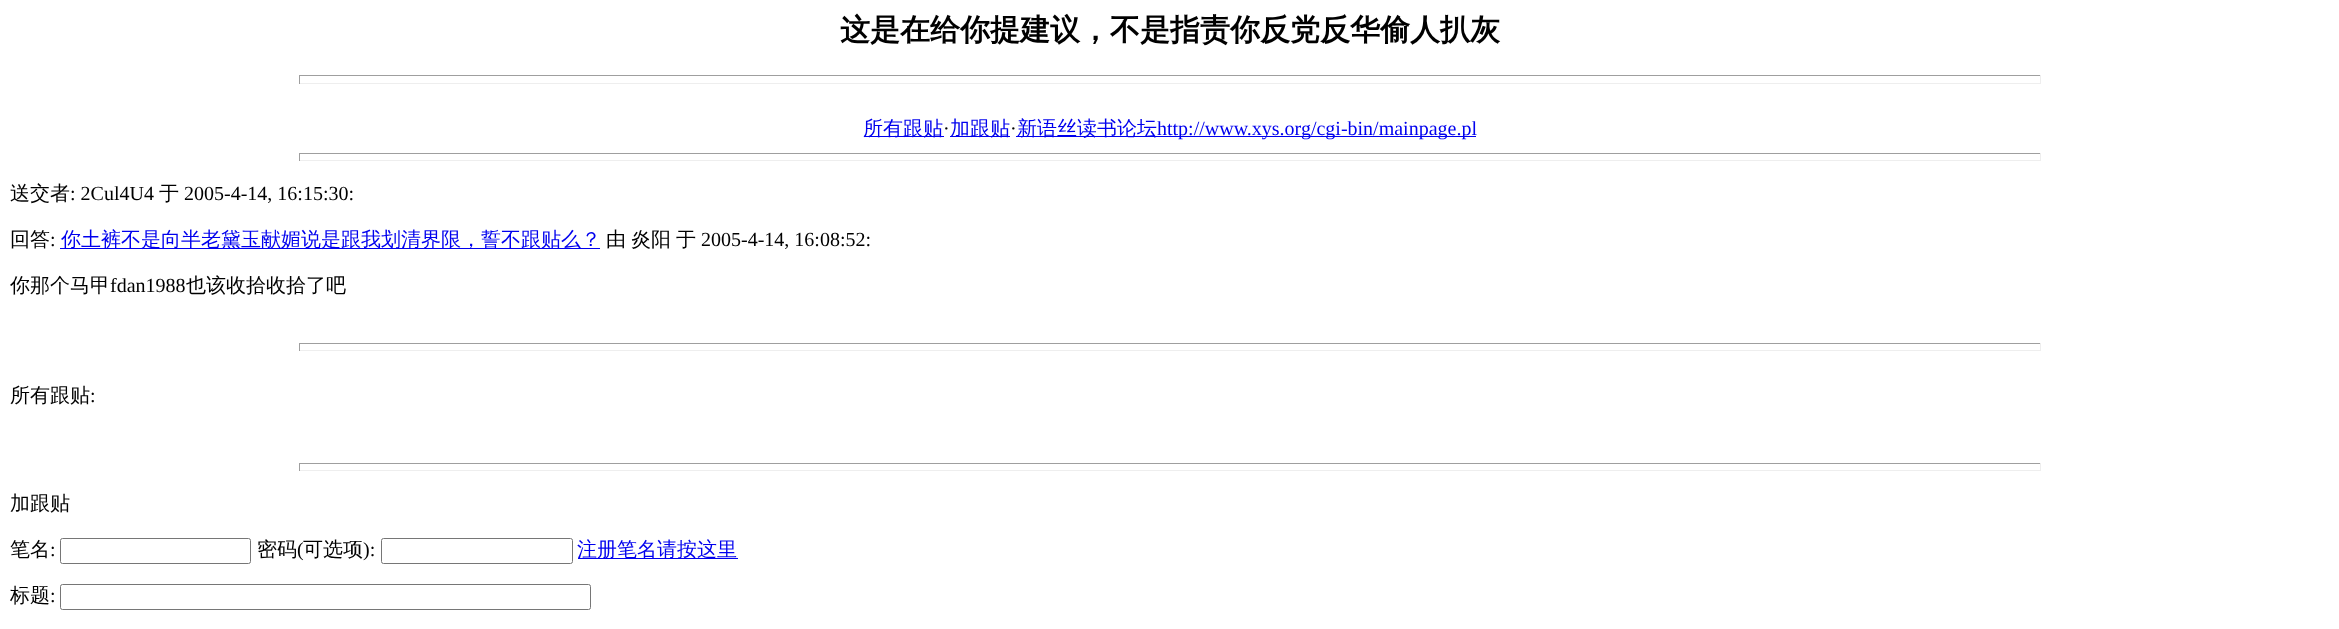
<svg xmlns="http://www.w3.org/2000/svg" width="2339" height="629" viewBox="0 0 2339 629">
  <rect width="100%" height="100%" fill="#ffffff"/>
  <text x="840" y="40" font-family="WenQuanYi Zen Hei" font-size="30" font-weight="bold" fill="#000000">这是在给你提建议，不是指责你反党反华偷人扒灰</text>
  <rect x="299" y="75" width="1742" height="1" fill="#9f9f9f"/>
  <rect x="2040" y="75" width="1" height="9" fill="#eeeeee"/>
  <rect x="299" y="83" width="1742" height="1" fill="#eeeeee"/>
  <rect x="299" y="75" width="1" height="9" fill="#9f9f9f"/>
  <rect x="864" y="136" width="80" height="1" fill="#0000ee"/>
  <text x="863" y="135" font-family="WenQuanYi Zen Hei" font-size="20" font-weight="500" fill="#0000ee">所有跟贴</text>
  <text x="943" y="135" font-family="Liberation Serif" font-size="20" fill="#000000">·</text>
  <rect x="950" y="136" width="60" height="1" fill="#0000ee"/>
  <text x="950" y="135" font-family="WenQuanYi Zen Hei" font-size="20" font-weight="500" fill="#0000ee">加跟贴</text>
  <text x="1010" y="135" font-family="Liberation Serif" font-size="20" fill="#000000">·</text>
  <rect x="1016" y="136" width="460" height="1" fill="#0000ee"/>
  <text x="1017" y="135" font-family="WenQuanYi Zen Hei" font-size="20" font-weight="500" fill="#0000ee">新语丝读书论坛</text>
  <text x="1157" y="135" font-family="Liberation Serif" font-size="20" fill="#0000ee">http://www.xys.org/cgi-bin/mainpage.pl</text>
  <rect x="299" y="153" width="1742" height="1" fill="#9f9f9f"/>
  <rect x="2040" y="153" width="1" height="8" fill="#eeeeee"/>
  <rect x="299" y="160" width="1742" height="1" fill="#eeeeee"/>
  <rect x="299" y="153" width="1" height="8" fill="#9f9f9f"/>
  <text x="10" y="200" font-family="WenQuanYi Zen Hei" font-size="20" font-weight="500" fill="#000000">送交者</text>
  <text x="70" y="200" font-family="Liberation Serif" font-size="20" fill="#000000">: 2Cul4U4</text>
  <text x="159" y="200" font-family="WenQuanYi Zen Hei" font-size="20" font-weight="500" fill="#000000">于</text>
  <text x="184" y="200" font-family="Liberation Serif" font-size="20" fill="#000000">2005-4-14, 16:15:30:</text>
  <text x="10" y="246" font-family="WenQuanYi Zen Hei" font-size="20" font-weight="500" fill="#000000">回答</text>
  <text x="50" y="246" font-family="Liberation Serif" font-size="20" fill="#000000">:</text>
  <rect x="60" y="248" width="540" height="1" fill="#0000ee"/>
  <text x="61" y="246" font-family="WenQuanYi Zen Hei" font-size="20" font-weight="500" fill="#0000ee">你土裤不是向半老黛玉献媚说是跟我划清界限，誓不跟贴么？</text>
  <text x="606" y="246" font-family="WenQuanYi Zen Hei" font-size="20" font-weight="500" fill="#000000">由</text>
  <text x="631" y="246" font-family="WenQuanYi Zen Hei" font-size="20" font-weight="500" fill="#000000">炎阳</text>
  <text x="676" y="246" font-family="WenQuanYi Zen Hei" font-size="20" font-weight="500" fill="#000000">于</text>
  <text x="701" y="246" font-family="Liberation Serif" font-size="20" fill="#000000">2005-4-14, 16:08:52:</text>
  <text x="10" y="292" font-family="WenQuanYi Zen Hei" font-size="20" font-weight="500" fill="#000000">你那个马甲</text>
  <text x="110" y="292" font-family="Liberation Serif" font-size="20" fill="#000000">fdan1988</text>
  <text x="186" y="292" font-family="WenQuanYi Zen Hei" font-size="20" font-weight="500" fill="#000000">也该收拾收拾了吧</text>
  <rect x="299" y="343" width="1742" height="1" fill="#9f9f9f"/>
  <rect x="2040" y="343" width="1" height="8" fill="#eeeeee"/>
  <rect x="299" y="350" width="1742" height="1" fill="#eeeeee"/>
  <rect x="299" y="343" width="1" height="8" fill="#9f9f9f"/>
  <text x="10" y="402" font-family="WenQuanYi Zen Hei" font-size="20" font-weight="500" fill="#000000">所有跟贴</text>
  <text x="90" y="402" font-family="Liberation Serif" font-size="20" fill="#000000">:</text>
  <rect x="299" y="463" width="1742" height="1" fill="#9f9f9f"/>
  <rect x="2040" y="463" width="1" height="8" fill="#eeeeee"/>
  <rect x="299" y="470" width="1742" height="1" fill="#eeeeee"/>
  <rect x="299" y="463" width="1" height="8" fill="#9f9f9f"/>
  <text x="10" y="510" font-family="WenQuanYi Zen Hei" font-size="20" font-weight="500" fill="#000000">加跟贴</text>
  <text x="10" y="556" font-family="WenQuanYi Zen Hei" font-size="20" font-weight="500" fill="#000000">笔名</text>
  <text x="50" y="556" font-family="Liberation Serif" font-size="20" fill="#000000">:</text>
  <rect x="60.5" y="538.5" width="190" height="25" rx="2" fill="none" stroke="#767676"/>
  <text x="257" y="556" font-family="WenQuanYi Zen Hei" font-size="20" font-weight="500" fill="#000000">密码</text>
  <text x="297" y="556" font-family="Liberation Serif" font-size="20" fill="#000000">(</text>
  <text x="303" y="556" font-family="WenQuanYi Zen Hei" font-size="20" font-weight="500" fill="#000000">可选项</text>
  <text x="363" y="556" font-family="Liberation Serif" font-size="20" fill="#000000">):</text>
  <rect x="381.5" y="538.5" width="191" height="25" rx="2" fill="none" stroke="#767676"/>
  <rect x="578" y="558" width="160" height="1" fill="#0000ee"/>
  <text x="577" y="556" font-family="WenQuanYi Zen Hei" font-size="20" font-weight="500" fill="#0000ee">注册笔名请按这里</text>
  <text x="10" y="602" font-family="WenQuanYi Zen Hei" font-size="20" font-weight="500" fill="#000000">标题</text>
  <text x="50" y="602" font-family="Liberation Serif" font-size="20" fill="#000000">:</text>
  <rect x="60.5" y="584.5" width="530" height="25" rx="2" fill="none" stroke="#767676"/>
</svg>
